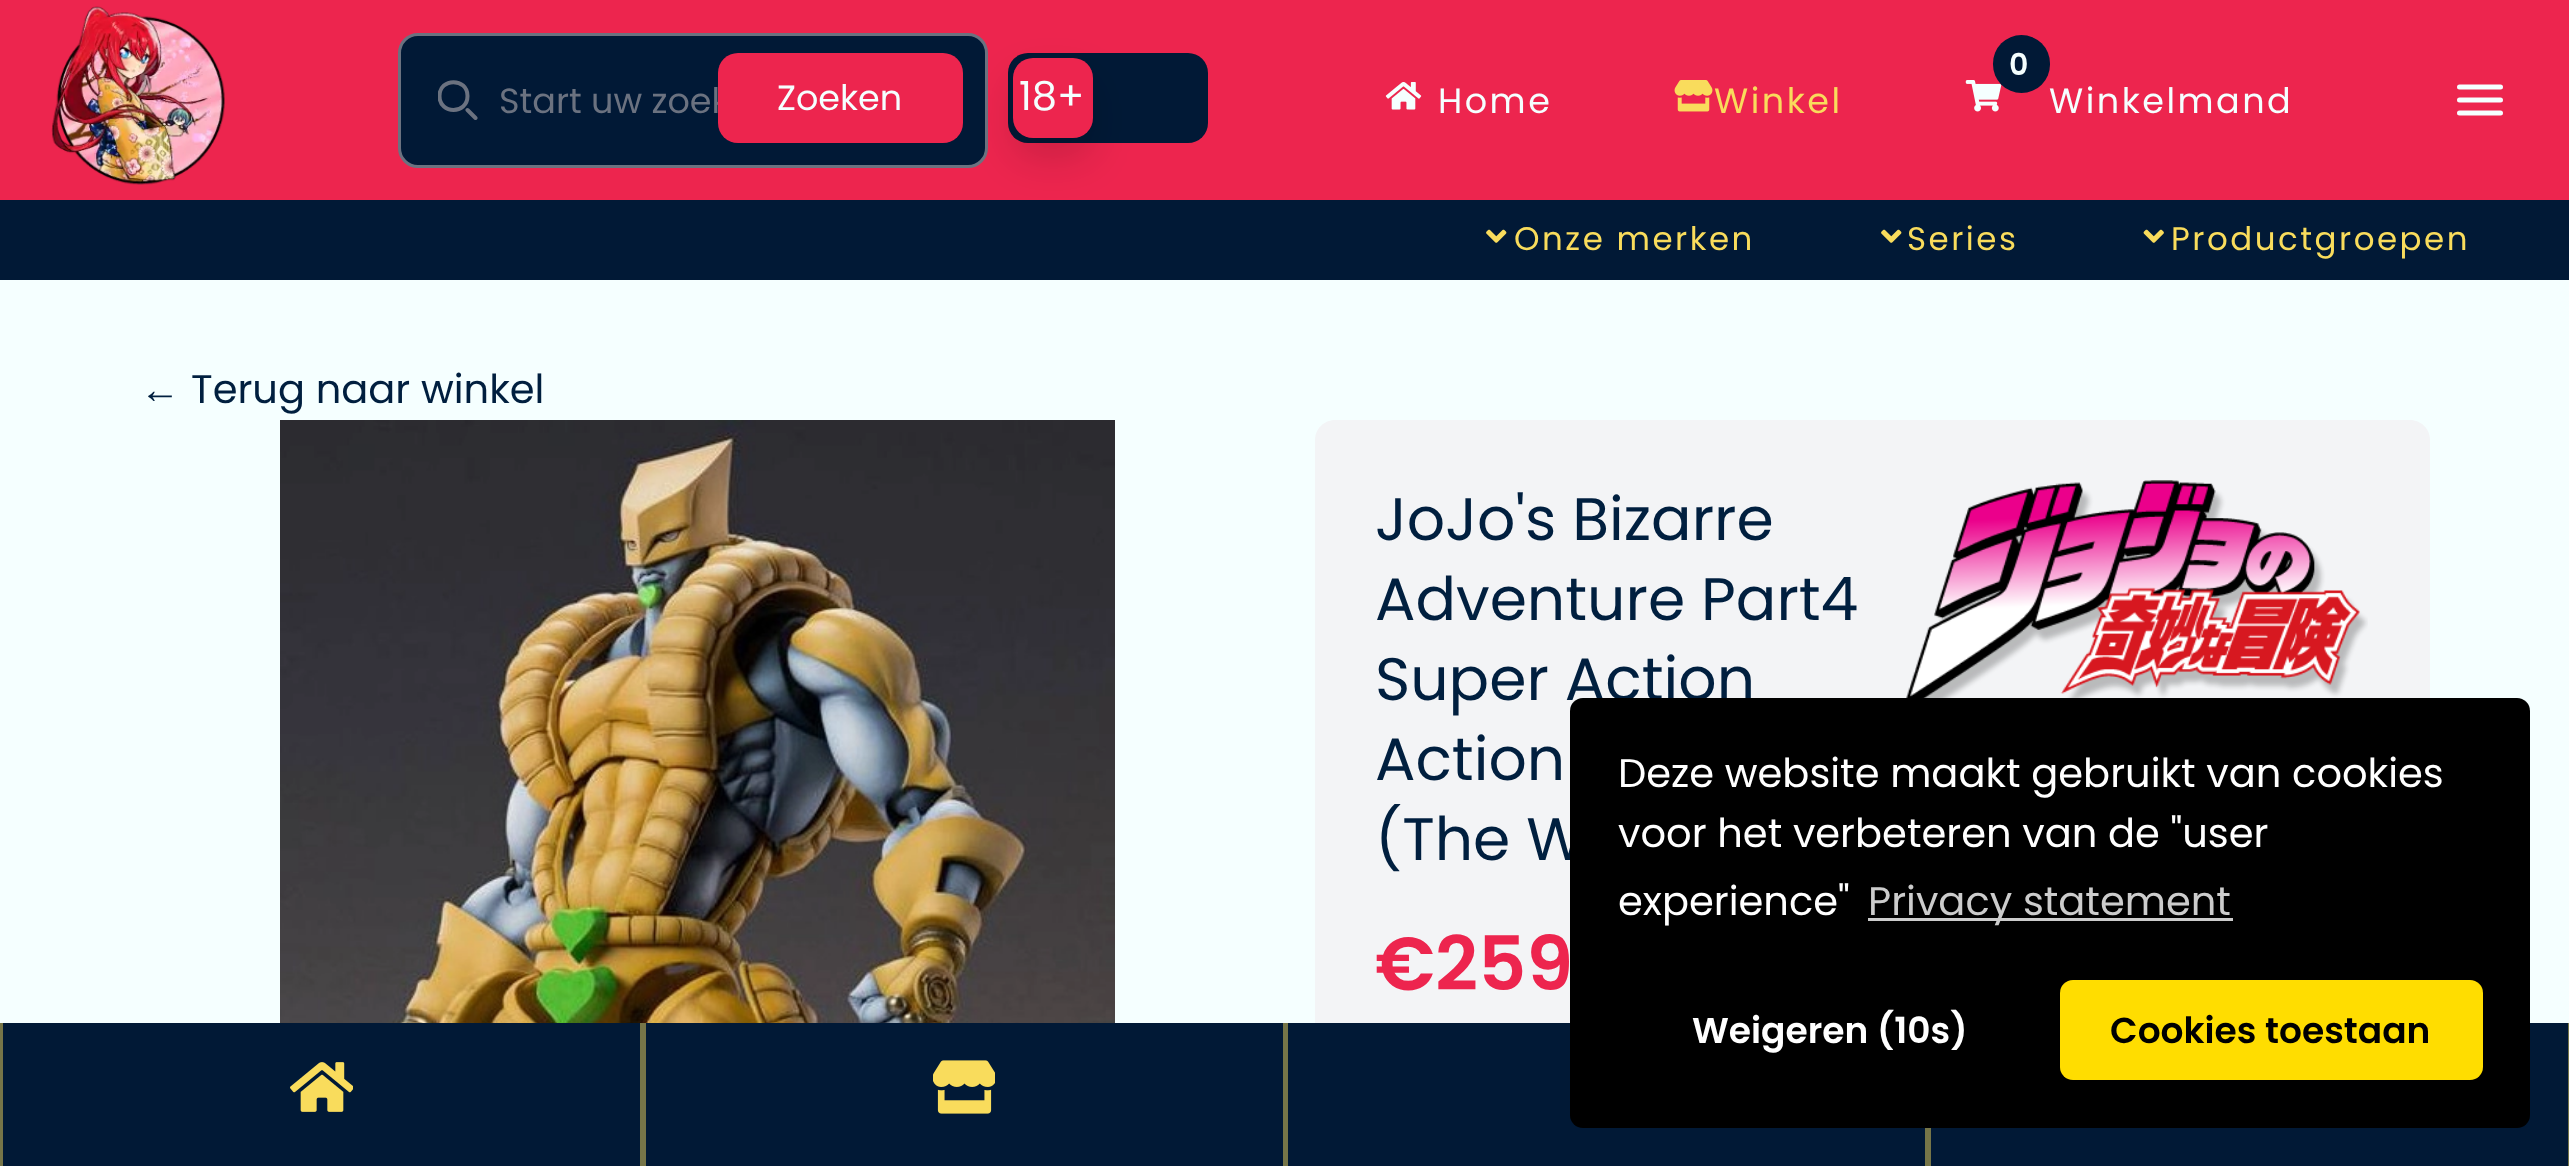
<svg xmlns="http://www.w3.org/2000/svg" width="2569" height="1166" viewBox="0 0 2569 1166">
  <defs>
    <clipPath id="clip1"><rect x="438" y="80" width="40" height="40"/></clipPath>
    <filter id="blur1" x="-50%" y="-200%" width="200%" height="500%"><feGaussianBlur stdDeviation="20"/></filter>
  </defs>
  <rect width="100%" height="100%" fill="#ed254e"/>
  <image x="51" y="6" width="174" height="179" href="img1.png"/>
  <rect x="399.5" y="34.5" width="587" height="132" rx="18.5" fill="#011936" stroke="#6b7280" stroke-width="3"/>
  <g clip-path="url(#clip1)">
    <path d="M475.5 118L467.5 110M467.5 96C467.5 114.5 439.5 114.5 439.5 96C439.5 77.5 467.5 77.5 467.5 96Z" fill="none" stroke="#6b7280" stroke-width="4" stroke-linecap="round" stroke-linejoin="round"/>
  </g>
  <text x="499" y="113" font-family="Poppins" font-size="35" fill="#6b7280">Start uw zoek</text>
  <rect x="718" y="53" width="245" height="90" rx="20" fill="#ed254e"/>
  <text x="777" y="110" font-family="Poppins" font-size="35" fill="#f5ffff">Zoeken</text>
  <rect x="1008" y="53" width="200" height="90" rx="20" fill="#011936"/>
  <rect x="0" y="200" width="2569" height="80" fill="#011936"/>
  <rect x="1013" y="78" width="80" height="80" rx="20" fill="#000000" fill-opacity="0.15" filter="url(#blur1)"/>
  <rect x="1013" y="58" width="80" height="80" rx="20" fill="#ed254e"/>
  <text x="1019" y="110" font-family="Poppins" font-size="40" fill="#f5ffff">18+</text>
  <image x="1385" y="82" width="37" height="28" href="img2.png"/>
  <text x="1438" y="113" font-family="Poppins" font-size="35" letter-spacing="2.5" fill="#f5ffff">Home</text>
  <image x="1674" y="80" width="39" height="32" href="img3.png"/>
  <text x="1714" y="113" font-family="Poppins" font-size="35" letter-spacing="2.5" fill="#f9dc5c">Winkel</text>
  <rect x="1993" y="35" width="57" height="58" rx="28.5" fill="#011936"/>
  <text x="2009" y="75" font-family="Poppins" font-size="30" font-weight="600" letter-spacing="2.5" fill="#f5ffff">0</text>
  <image x="1965" y="80" width="37" height="32" href="img4.png"/>
  <text x="2049" y="113" font-family="Poppins" font-size="35" letter-spacing="2.5" fill="#f5ffff">Winkelmand</text>
  <path d="M2459.5 87H2500.5M2459.5 100H2500.5M2459.5 113H2500.5" fill="none" stroke="#f5ffff" stroke-width="5" stroke-linecap="round" stroke-linejoin="round"/>
  <image x="1486" y="229" width="21" height="14" href="img5.png"/>
  <text x="1514" y="250" font-family="Poppins" font-size="32.5" letter-spacing="2.5" fill="#f9dc5c">Onze merken</text>
  <image x="1881" y="229" width="21" height="14" href="img5.png"/>
  <text x="1907" y="250" font-family="Poppins" font-size="32.5" letter-spacing="2.5" fill="#f9dc5c">Series</text>
  <image x="2143" y="229" width="21" height="14" href="img6.png"/>
  <text x="2171" y="250" font-family="Poppins" font-size="32.5" letter-spacing="2.5" fill="#f9dc5c">Productgroepen</text>
  <rect x="0" y="280" width="2569" height="743" fill="#f5ffff"/>
  <text x="140" y="403" font-family="Liberation Sans" font-size="40" fill="#001f3f">←</text>
  <text x="191" y="403" font-family="Poppins" font-size="40" fill="#001f3f">Terug naar winkel</text>
  <image x="280" y="420" width="835" height="603" href="img7.png"/>
  <path d="M1335 420H2410C2421 420 2430 429 2430 440V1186H1315V440C1315 429 1324 420 1335 420Z" fill="#f3f4f6"/>
  <text x="1375" y="540" font-family="Poppins" font-size="60" fill="#001f3f">JoJo's Bizarre</text>
  <text x="1375" y="620" font-family="Poppins" font-size="60" fill="#001f3f">Adventure Part4</text>
  <text x="1375" y="700" font-family="Poppins" font-size="60" fill="#001f3f">Super Action</text>
  <text x="1375" y="780" font-family="Poppins" font-size="60" fill="#001f3f">Action</text>
  <text x="1375" y="860" font-family="Poppins" font-size="60" fill="#001f3f">(The W</text>
  <image x="1906" y="480" width="462" height="218" href="img8.png"/>
  <text x="1375" y="990" font-family="Poppins" font-size="75" font-weight="600" fill="#ed254e">€259</text>
  <rect x="3" y="1023" width="2565" height="143" fill="#011936"/>
  <rect x="1570" y="698" width="960" height="430" rx="13" fill="#000000"/>
  <text x="1618" y="787" font-family="Poppins" font-size="40" fill="#ffffff">Deze website maakt gebruikt van cookies</text>
  <text x="1618" y="847" font-family="Poppins" font-size="40" fill="#ffffff">voor het verbeteren van de "user</text>
  <text x="1618" y="915" font-family="Poppins" font-size="40" fill="#ffffff">experience"</text>
  <rect x="1868" y="918" width="365" height="3" fill="#cccccc"/>
  <text x="1868" y="915" font-family="Poppins" font-size="40" fill="#cccccc">Privacy statement</text>
  <text x="1692" y="1043" font-family="Poppins" font-size="36" font-weight="600" fill="#ffffff">Weigeren (10s)</text>
  <rect x="2060" y="980" width="423" height="100" rx="13" fill="#ffdd00"/>
  <text x="2110" y="1043" font-family="Poppins" font-size="36" font-weight="600" fill="#000000">Cookies toestaan</text>
  <rect x="640" y="1023" width="6" height="143" fill="#767548"/>
  <rect x="0" y="1023" width="3" height="143" fill="#767548"/>
  <image x="290" y="1062" width="63" height="50" href="img9.png"/>
  <rect x="1283" y="1023" width="5" height="143" fill="#767548"/>
  <image x="933" y="1060" width="62" height="54" href="img10.png"/>
  <rect x="1925" y="1128" width="6" height="38" fill="#767548"/>
  <rect x="2568" y="1023" width="1" height="143" fill="#767548"/>
</svg>
